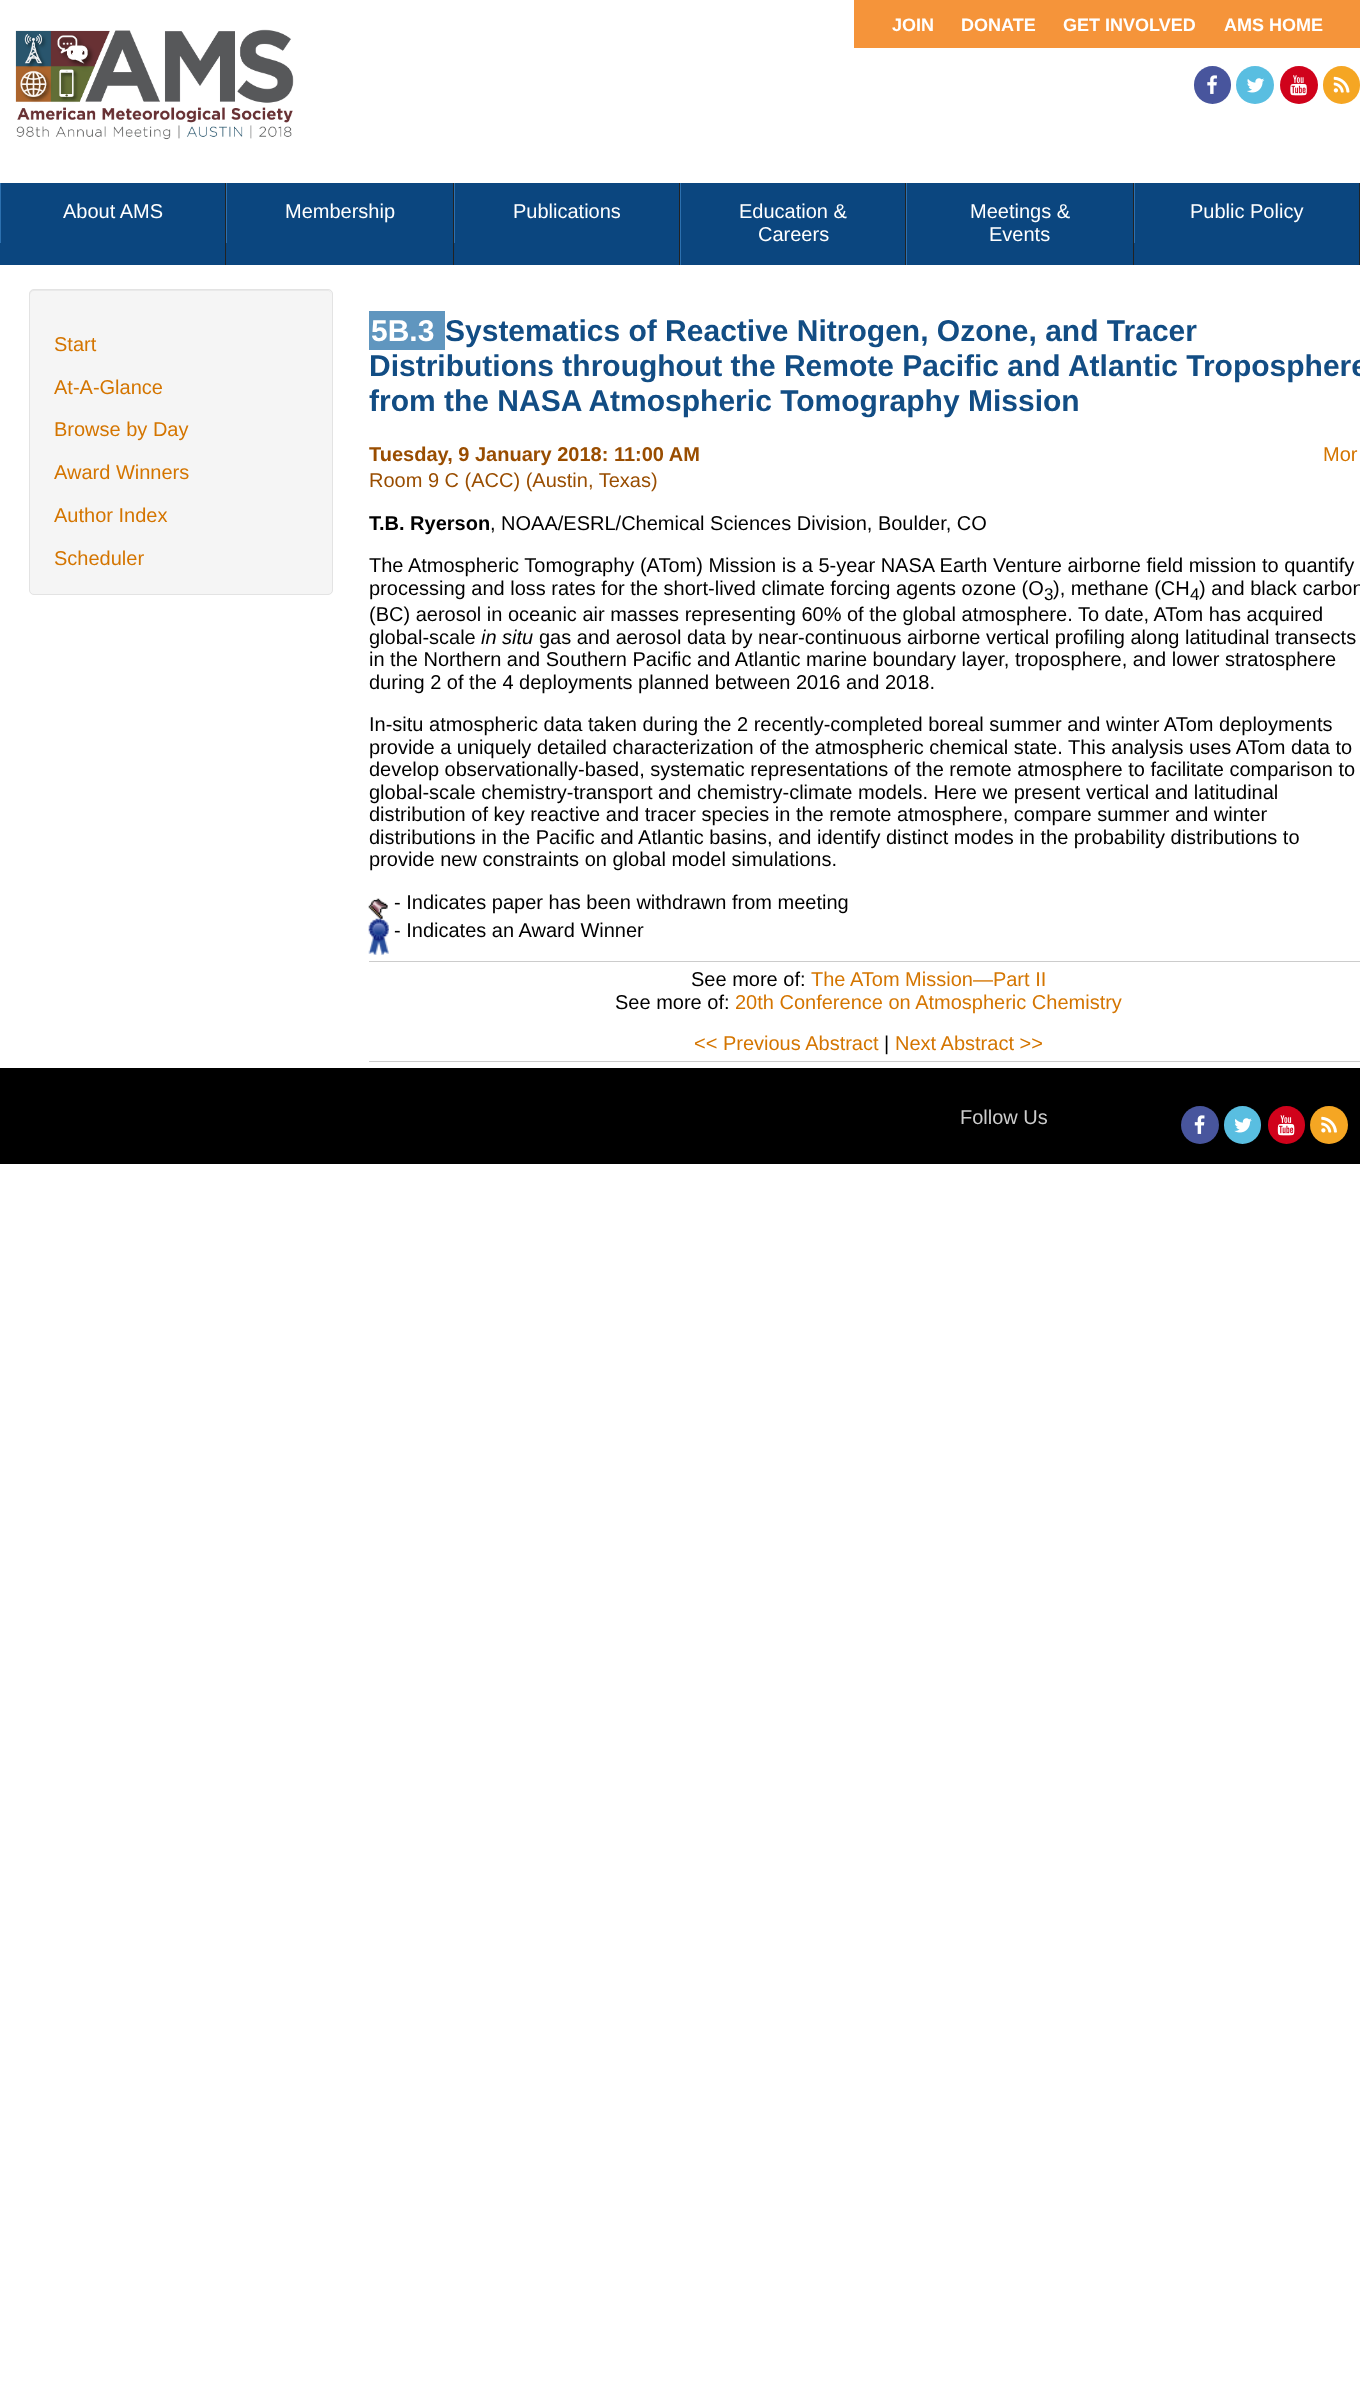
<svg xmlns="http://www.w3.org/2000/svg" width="1360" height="2399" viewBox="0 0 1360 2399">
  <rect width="100%" height="100%" fill="#ffffff"/>
  <rect x="854" y="0" width="506" height="48" fill="#f5943a"/>
  <text x="892" y="31" font-family="Liberation Sans" font-size="18" font-weight="bold" fill="#ffffff">JOIN</text>
  <text x="961" y="31" font-family="Liberation Sans" font-size="18" font-weight="bold" fill="#ffffff">DONATE</text>
  <text x="1063" y="31" font-family="Liberation Sans" font-size="18" font-weight="bold" fill="#ffffff">GET INVOLVED</text>
  <text x="1224" y="31" font-family="Liberation Sans" font-size="18" font-weight="bold" fill="#ffffff">AMS HOME</text>
  <rect x="1194" y="66" width="37" height="38" rx="18.5" fill="#48559d"/>
  <image x="1207" y="75" width="10" height="19" href="img1.png"/>
  <circle cx="1255" cy="85" r="19" fill="#59bee1"/>
  <image x="1247" y="78" width="18" height="15" href="img2.png"/>
  <circle cx="1299" cy="85" r="19" fill="#d0021b"/>
  <image x="1290" y="75" width="17" height="21" href="img3.png"/>
  <rect x="1323" y="66" width="37" height="38" rx="18.5" fill="#f5a623"/>
  <image x="1333" y="76" width="17" height="17" href="img4.png"/>
  <image x="15" y="29" width="279" height="111" href="img5.png"/>
  <rect x="0" y="183" width="1359" height="82" fill="#0b467f"/>
  <rect x="225" y="183" width="1" height="82" fill="#222222"/>
  <rect x="0" y="183" width="1" height="60" fill="#2c70af"/>
  <text x="63" y="218" font-family="Liberation Sans" font-size="20" fill="#ffffff">About AMS</text>
  <rect x="453" y="183" width="1" height="82" fill="#222222"/>
  <rect x="226" y="183" width="1" height="60" fill="#2c70af"/>
  <text x="285" y="218" font-family="Liberation Sans" font-size="20" fill="#ffffff">Membership</text>
  <rect x="679" y="183" width="1" height="82" fill="#222222"/>
  <rect x="454" y="183" width="1" height="60" fill="#2c70af"/>
  <text x="513" y="218" font-family="Liberation Sans" font-size="20" fill="#ffffff">Publications</text>
  <rect x="905" y="183" width="1" height="82" fill="#222222"/>
  <rect x="680" y="183" width="1" height="82" fill="#2c70af"/>
  <text x="739" y="218" font-family="Liberation Sans" font-size="20" fill="#ffffff">Education &amp;</text>
  <text x="758" y="241" font-family="Liberation Sans" font-size="20" fill="#ffffff">Careers</text>
  <rect x="1133" y="183" width="1" height="82" fill="#222222"/>
  <rect x="906" y="183" width="1" height="82" fill="#2c70af"/>
  <text x="970" y="218" font-family="Liberation Sans" font-size="20" fill="#ffffff">Meetings &amp;</text>
  <text x="989" y="241" font-family="Liberation Sans" font-size="20" fill="#ffffff">Events</text>
  <rect x="1359" y="183" width="1" height="82" fill="#222222"/>
  <rect x="1134" y="183" width="1" height="60" fill="#2c70af"/>
  <text x="1190" y="218" font-family="Liberation Sans" font-size="20" fill="#ffffff">Public Policy</text>
  <rect x="29" y="289" width="304" height="306" rx="5" fill="#f5f5f5"/>
  <path d="M34 291H328C330 291 331 293 331 295C331 292 330 290 327 290H34C31 290 30 292 30 295C30 293 32 291 34 291Z" fill="#e9e9e9"/>
  <rect x="29.5" y="289.5" width="303" height="305" rx="4.5" fill="none" stroke="#e3e3e3"/>
  <text x="54" y="351" font-family="Liberation Sans" font-size="20" fill="#d47500">Start</text>
  <text x="54" y="394" font-family="Liberation Sans" font-size="20" fill="#d47500">At-A-Glance</text>
  <text x="54" y="436" font-family="Liberation Sans" font-size="20" fill="#d47500">Browse by Day</text>
  <text x="54" y="479" font-family="Liberation Sans" font-size="20" fill="#d47500">Award Winners</text>
  <text x="54" y="522" font-family="Liberation Sans" font-size="20" fill="#d47500">Author Index</text>
  <text x="54" y="565" font-family="Liberation Sans" font-size="20" fill="#d47500">Scheduler</text>
  <rect x="369" y="311" width="76" height="39" fill="#6096bf"/>
  <text x="371" y="341" font-family="Liberation Sans" font-size="30" font-weight="bold" fill="#ffffff">5B.3</text>
  <text x="445" y="341" font-family="Liberation Sans" font-size="30" font-weight="bold" fill="#124d84">Systematics of Reactive Nitrogen, Ozone, and Tracer</text>
  <text x="369" y="376" font-family="Liberation Sans" font-size="30" font-weight="bold" fill="#124d84">Distributions throughout the Remote Pacific and Atlantic Troposphere</text>
  <text x="369" y="411" font-family="Liberation Sans" font-size="30" font-weight="bold" fill="#124d84">from the NASA Atmospheric Tomography Mission</text>
  <text x="369" y="461" font-family="Liberation Sans" font-size="20" font-weight="bold" fill="#994d00">Tuesday, 9 January 2018: 11:00 AM</text>
  <text x="1323" y="461" font-family="Liberation Sans" font-size="20" fill="#d47500">Mor</text>
  <text x="369" y="487" font-family="Liberation Sans" font-size="20" fill="#994d00">Room 9 C (ACC) (Austin, Texas)</text>
  <text x="369" y="530" font-family="Liberation Sans" font-size="20" font-weight="bold" fill="#000000">T.B. Ryerson</text>
  <text x="490" y="530" font-family="Liberation Sans" font-size="20" fill="#000000">, NOAA/ESRL/Chemical Sciences Division, Boulder, CO</text>
  <text x="369" y="572" font-family="Liberation Sans" font-size="20" fill="#000000">The Atmospheric Tomography (ATom) Mission is a 5-year NASA Earth Venture airborne field mission to quantify</text>
  <text x="369" y="595" font-family="Liberation Sans" font-size="20" fill="#000000">processing and loss rates for the short-lived climate forcing agents ozone (O</text>
  <text x="1044" y="600" font-family="Liberation Sans" font-size="17" fill="#000000">3</text>
  <text x="1053" y="595" font-family="Liberation Sans" font-size="20" fill="#000000">), methane (CH</text>
  <text x="1190" y="600" font-family="Liberation Sans" font-size="17" fill="#000000">4</text>
  <text x="1199" y="595" font-family="Liberation Sans" font-size="20" fill="#000000">) and black carbon</text>
  <text x="369" y="621" font-family="Liberation Sans" font-size="20" fill="#000000">(BC) aerosol in oceanic air masses representing 60% of the global atmosphere. To date, ATom has acquired</text>
  <text x="369" y="644" font-family="Liberation Sans" font-size="20" fill="#000000">global-scale</text>
  <text x="481" y="644" font-family="Liberation Sans" font-size="20" font-style="italic" fill="#000000">in situ</text>
  <text x="539" y="644" font-family="Liberation Sans" font-size="20" fill="#000000">gas and aerosol data by near-continuous airborne vertical profiling along latitudinal transects</text>
  <text x="369" y="666" font-family="Liberation Sans" font-size="20" fill="#000000">in the Northern and Southern Pacific and Atlantic marine boundary layer, troposphere, and lower stratosphere</text>
  <text x="369" y="689" font-family="Liberation Sans" font-size="20" fill="#000000">during 2 of the 4 deployments planned between 2016 and 2018.</text>
  <text x="369" y="731" font-family="Liberation Sans" font-size="20" fill="#000000">In-situ atmospheric data taken during the 2 recently-completed boreal summer and winter ATom deployments</text>
  <text x="369" y="754" font-family="Liberation Sans" font-size="20" fill="#000000">provide a uniquely detailed characterization of the atmospheric chemical state. This analysis uses ATom data to</text>
  <text x="369" y="776" font-family="Liberation Sans" font-size="20" fill="#000000">develop observationally-based, systematic representations of the remote atmosphere to facilitate comparison to</text>
  <text x="369" y="799" font-family="Liberation Sans" font-size="20" fill="#000000">global-scale chemistry-transport and chemistry-climate models. Here we present vertical and latitudinal</text>
  <text x="369" y="821" font-family="Liberation Sans" font-size="20" fill="#000000">distribution of key reactive and tracer species in the remote atmosphere, compare summer and winter</text>
  <text x="369" y="844" font-family="Liberation Sans" font-size="20" fill="#000000">distributions in the Pacific and Atlantic basins, and identify distinct modes in the probability distributions to</text>
  <text x="369" y="866" font-family="Liberation Sans" font-size="20" fill="#000000">provide new constraints on global model simulations.</text>
  <image x="368" y="898" width="20" height="21" href="img6.png"/>
  <text x="394" y="909" font-family="Liberation Sans" font-size="20" fill="#000000">- Indicates paper has been withdrawn from meeting</text>
  <image x="368" y="918" width="21" height="37" href="img7.png"/>
  <text x="394" y="937" font-family="Liberation Sans" font-size="20" fill="#000000">- Indicates an Award Winner</text>
  <rect x="369" y="961" width="991" height="1" fill="#cccccc"/>
  <text x="691" y="986" font-family="Liberation Sans" font-size="20" fill="#000000">See more of:</text>
  <text x="811" y="986" font-family="Liberation Sans" font-size="20" fill="#d47500">The ATom Mission—Part II</text>
  <text x="615" y="1009" font-family="Liberation Sans" font-size="20" fill="#000000">See more of:</text>
  <text x="735" y="1009" font-family="Liberation Sans" font-size="20" fill="#d47500">20th Conference on Atmospheric Chemistry</text>
  <rect x="369" y="1061" width="991" height="1" fill="#cccccc"/>
  <text x="694" y="1050" font-family="Liberation Sans" font-size="20" fill="#d47500">&lt;&lt; Previous Abstract</text>
  <text x="884" y="1050" font-family="Liberation Sans" font-size="20" fill="#000000">|</text>
  <text x="895" y="1050" font-family="Liberation Sans" font-size="20" fill="#d47500">Next Abstract &gt;&gt;</text>
  <rect x="0" y="1068" width="1360" height="96" fill="#000000"/>
  <text x="960" y="1124" font-family="Liberation Sans" font-size="20" fill="#cccccc">Follow Us</text>
  <circle cx="1200" cy="1125" r="19" fill="#48559d"/>
  <image x="1194" y="1115" width="11" height="19" href="img8.png"/>
  <rect x="1224" y="1106" width="37" height="38" rx="18.5" fill="#59bee1"/>
  <image x="1234" y="1118" width="18" height="15" href="img9.png"/>
  <rect x="1268" y="1106" width="37" height="38" rx="18.5" fill="#d0021b"/>
  <image x="1277" y="1115" width="18" height="21" href="img10.png"/>
  <circle cx="1329" cy="1125" r="19" fill="#f5a623"/>
  <image x="1321" y="1116" width="16" height="17" href="img11.png"/>
</svg>
